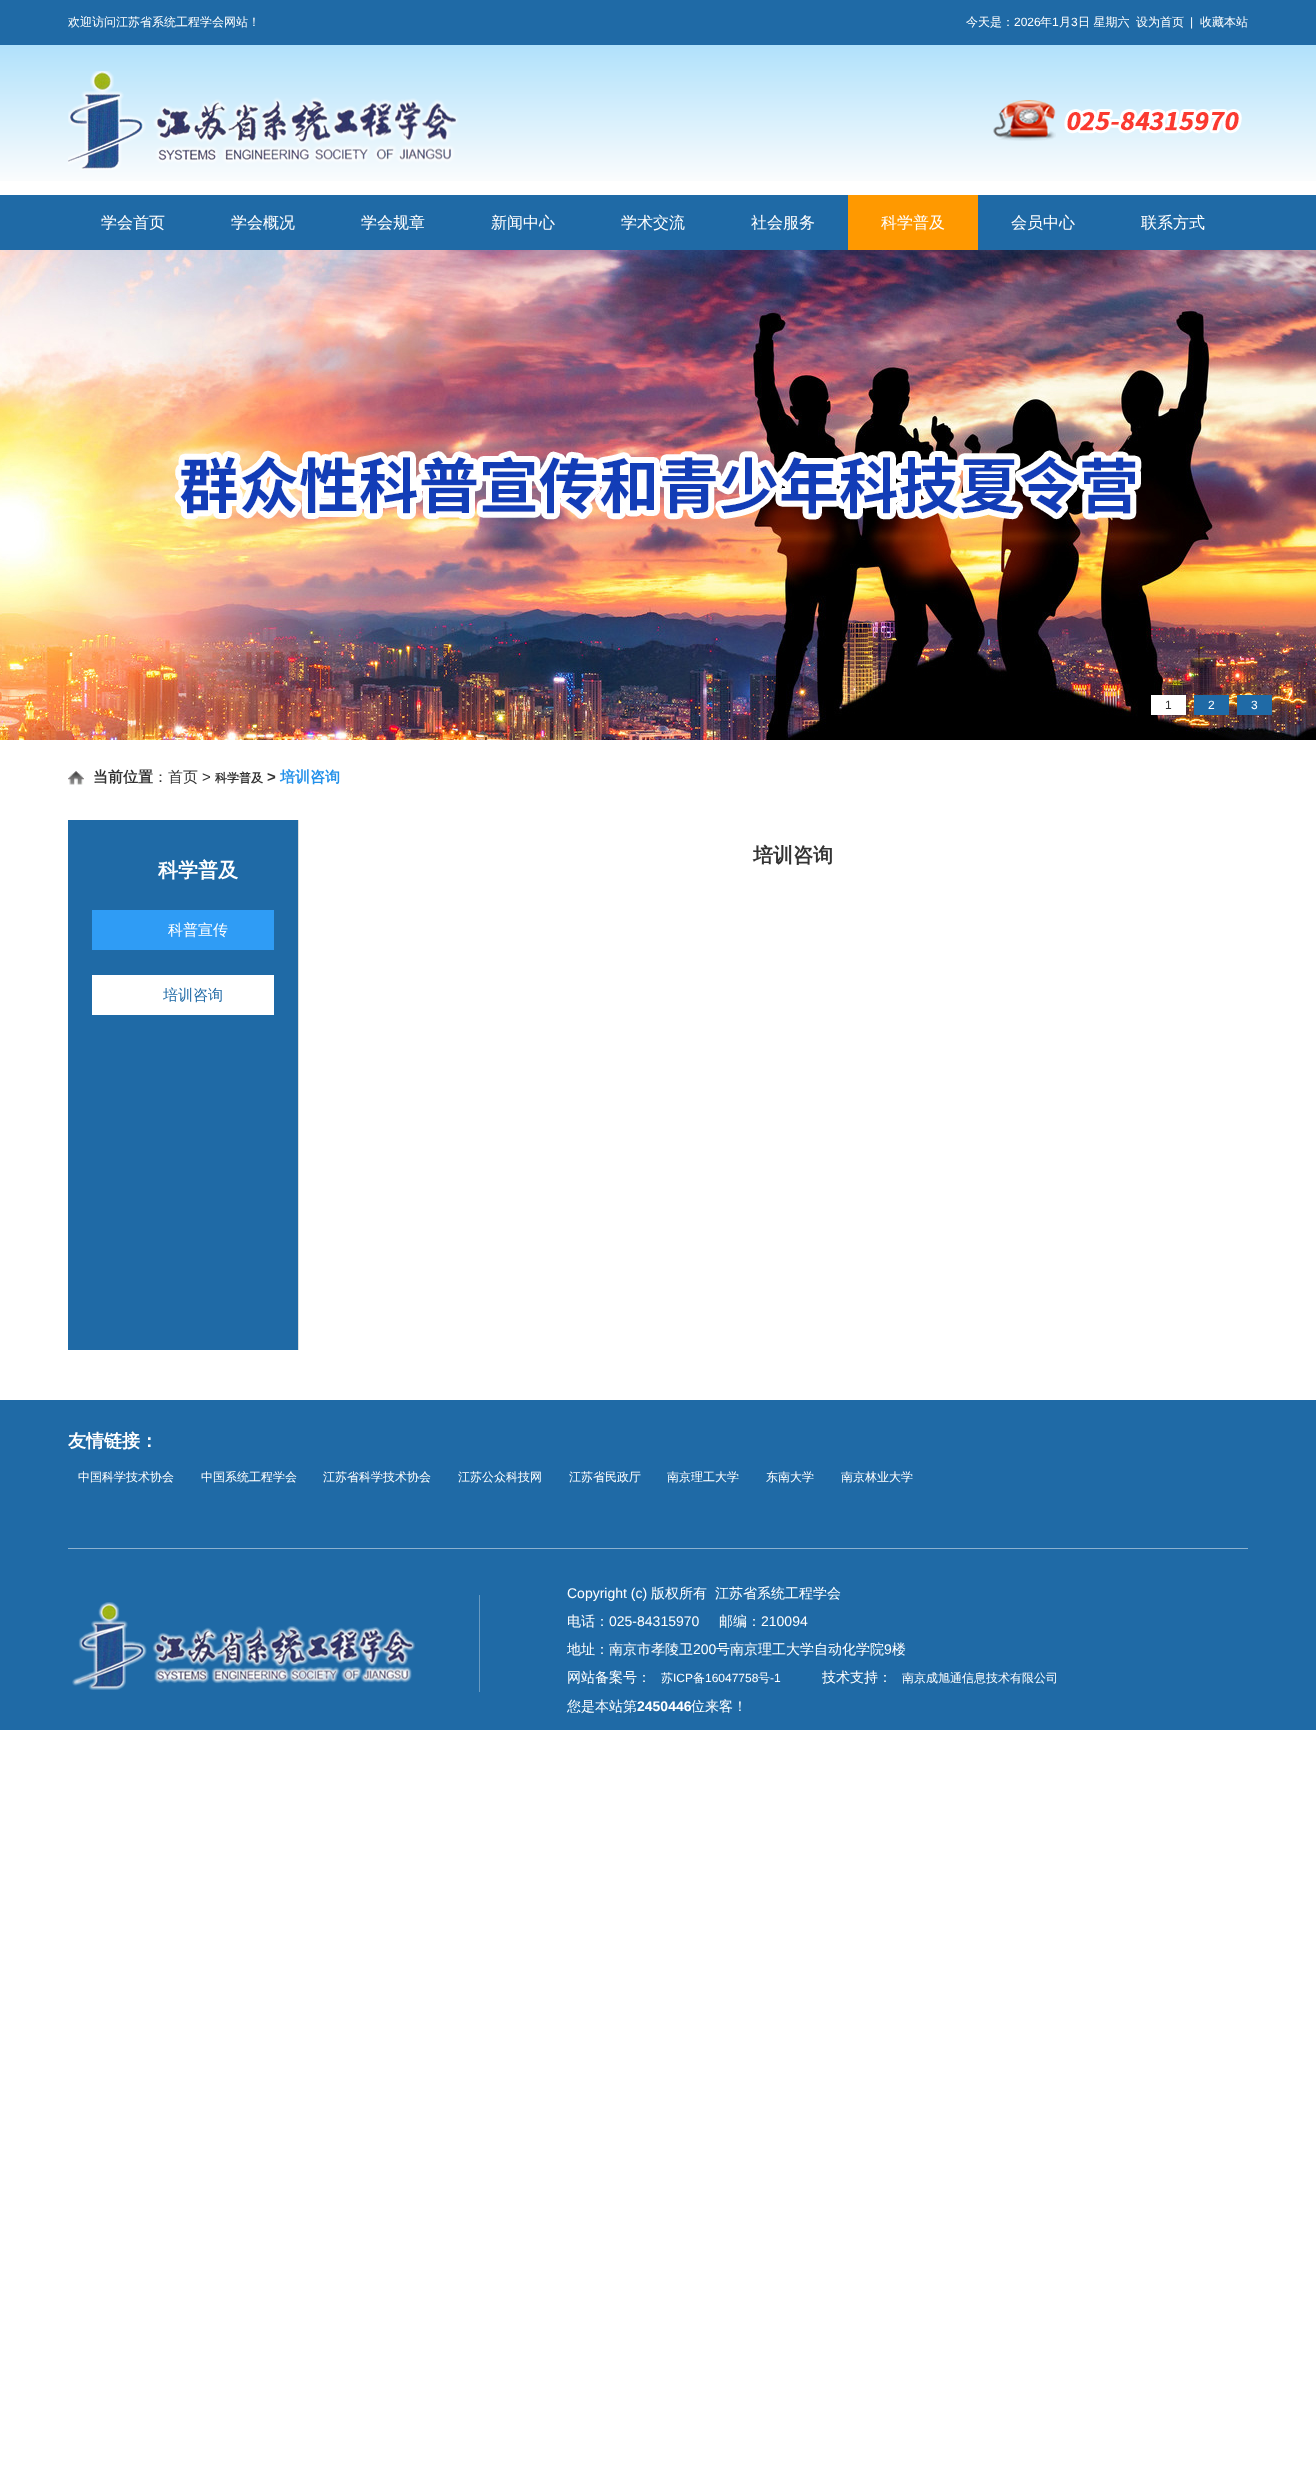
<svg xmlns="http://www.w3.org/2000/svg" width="1316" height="2475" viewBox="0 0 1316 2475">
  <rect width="100%" height="100%" fill="#ffffff"/>
  <rect x="0" y="0" width="1316" height="45" fill="#1f6aa6"/>
  <text x="68" y="26" font-family="WenQuanYi Zen Hei" font-size="12" font-weight="500" fill="#ffffff">欢迎访问江苏省系统工程学会网站！</text>
  <text x="966" y="26" font-family="WenQuanYi Zen Hei" font-size="12" font-weight="500" fill="#ffffff">今天是：</text>
  <text x="1014" y="26" font-family="Liberation Sans" font-size="12" fill="#ffffff">2026</text>
  <text x="1040" y="26" font-family="WenQuanYi Zen Hei" font-size="12" font-weight="500" fill="#ffffff">年</text>
  <text x="1052" y="26" font-family="Liberation Sans" font-size="12" fill="#ffffff">1</text>
  <text x="1059" y="26" font-family="WenQuanYi Zen Hei" font-size="12" font-weight="500" fill="#ffffff">月</text>
  <text x="1071" y="26" font-family="Liberation Sans" font-size="12" fill="#ffffff">3</text>
  <text x="1078" y="26" font-family="WenQuanYi Zen Hei" font-size="12" font-weight="500" fill="#ffffff">日 星期六</text>
  <text x="1136" y="26" font-family="WenQuanYi Zen Hei" font-size="12" font-weight="500" fill="#ffffff">设为首页</text>
  <text x="1190" y="26" font-family="Liberation Sans" font-size="12" fill="#ffffff">|</text>
  <text x="1200" y="26" font-family="WenQuanYi Zen Hei" font-size="12" font-weight="500" fill="#ffffff">收藏本站</text>
  <image x="0" y="45" width="1316" height="136" href="img1.png"/>
  <image x="68" y="71" width="391" height="99" href="img2.png"/>
  <image x="993" y="100" width="249" height="41" href="img3.png"/>
  <rect x="0" y="195" width="1316" height="55" fill="#1f6aa6"/>
  <text x="101" y="228" font-family="WenQuanYi Zen Hei" font-size="16" font-weight="500" fill="#ffffff">学会首页</text>
  <text x="231" y="228" font-family="WenQuanYi Zen Hei" font-size="16" font-weight="500" fill="#ffffff">学会概况</text>
  <text x="361" y="228" font-family="WenQuanYi Zen Hei" font-size="16" font-weight="500" fill="#ffffff">学会规章</text>
  <text x="491" y="228" font-family="WenQuanYi Zen Hei" font-size="16" font-weight="500" fill="#ffffff">新闻中心</text>
  <text x="621" y="228" font-family="WenQuanYi Zen Hei" font-size="16" font-weight="500" fill="#ffffff">学术交流</text>
  <text x="751" y="228" font-family="WenQuanYi Zen Hei" font-size="16" font-weight="500" fill="#ffffff">社会服务</text>
  <rect x="848" y="195" width="130" height="55" fill="#ff9900"/>
  <text x="881" y="228" font-family="WenQuanYi Zen Hei" font-size="16" font-weight="500" fill="#ffffff">科学普及</text>
  <text x="1011" y="228" font-family="WenQuanYi Zen Hei" font-size="16" font-weight="500" fill="#ffffff">会员中心</text>
  <text x="1141" y="228" font-family="WenQuanYi Zen Hei" font-size="16" font-weight="500" fill="#ffffff">联系方式</text>
  <image x="0" y="250" width="1316" height="490" href="img4.png"/>
  <rect x="1151" y="695" width="35" height="20" fill="#ffffff"/>
  <text x="1165" y="709" font-family="Liberation Sans" font-size="12" fill="#333333">1</text>
  <rect x="1194" y="695" width="35" height="20" fill="#1f6aa6"/>
  <text x="1208" y="709" font-family="Liberation Sans" font-size="12" fill="#ffffff">2</text>
  <rect x="1237" y="695" width="35" height="20" fill="#1f6aa6"/>
  <text x="1251" y="709" font-family="Liberation Sans" font-size="12" fill="#ffffff">3</text>
  <image x="68" y="771" width="16" height="14" href="img5.png"/>
  <text x="93" y="782" font-family="WenQuanYi Zen Hei" font-size="15" font-weight="bold" fill="#333333">当前位置</text>
  <text x="153" y="782" font-family="WenQuanYi Zen Hei" font-size="15" font-weight="500" fill="#333333">：首页</text>
  <text x="202" y="782" font-family="Liberation Sans" font-size="15" fill="#333333">&gt;</text>
  <text x="215" y="782" font-family="WenQuanYi Zen Hei" font-size="12" font-weight="bold" fill="#333333">科学普及</text>
  <text x="267" y="782" font-family="Liberation Sans" font-size="15" font-weight="bold" fill="#333333">&gt;</text>
  <text x="280" y="782" font-family="WenQuanYi Zen Hei" font-size="15" font-weight="bold" fill="#2391ea">培训咨询</text>
  <text x="753" y="862" font-family="WenQuanYi Zen Hei" font-size="20" font-weight="bold" fill="#333333">培训咨询</text>
  <rect x="68" y="820" width="230" height="530" fill="#1f6aa6"/>
  <rect x="298" y="820" width="1" height="530" fill="#dddddd"/>
  <text x="158" y="877" font-family="WenQuanYi Zen Hei" font-size="20" font-weight="bold" fill="#ffffff">科学普及</text>
  <rect x="92" y="910" width="182" height="40" fill="#2f9cf5"/>
  <text x="168" y="935" font-family="WenQuanYi Zen Hei" font-size="15" font-weight="500" fill="#ffffff">科普宣传</text>
  <rect x="92" y="975" width="182" height="40" fill="#ffffff"/>
  <text x="163" y="1000" font-family="WenQuanYi Zen Hei" font-size="15" font-weight="500" fill="#1f6aa6">培训咨询</text>
  <rect x="0" y="1400" width="1316" height="330" fill="#1f6aa6"/>
  <text x="68" y="1447" font-family="WenQuanYi Zen Hei" font-size="18" font-weight="bold" fill="#ffffff">友情链接：</text>
  <text x="78" y="1481" font-family="WenQuanYi Zen Hei" font-size="12" font-weight="500" fill="#ffffff">中国科学技术协会</text>
  <text x="201" y="1481" font-family="WenQuanYi Zen Hei" font-size="12" font-weight="500" fill="#ffffff">中国系统工程学会</text>
  <text x="323" y="1481" font-family="WenQuanYi Zen Hei" font-size="12" font-weight="500" fill="#ffffff">江苏省科学技术协会</text>
  <text x="458" y="1481" font-family="WenQuanYi Zen Hei" font-size="12" font-weight="500" fill="#ffffff">江苏公众科技网</text>
  <text x="569" y="1481" font-family="WenQuanYi Zen Hei" font-size="12" font-weight="500" fill="#ffffff">江苏省民政厅</text>
  <text x="667" y="1481" font-family="WenQuanYi Zen Hei" font-size="12" font-weight="500" fill="#ffffff">南京理工大学</text>
  <text x="766" y="1481" font-family="WenQuanYi Zen Hei" font-size="12" font-weight="500" fill="#ffffff">东南大学</text>
  <text x="841" y="1481" font-family="WenQuanYi Zen Hei" font-size="12" font-weight="500" fill="#ffffff">南京林业大学</text>
  <rect x="68" y="1548" width="1180" height="1" fill="#8cb1cf"/>
  <image x="72" y="1595" width="408" height="97" href="img6.png"/>
  <text x="567" y="1598" font-family="Liberation Sans" font-size="14" fill="#ffffff">Copyright (c)</text>
  <text x="651" y="1598" font-family="WenQuanYi Zen Hei" font-size="14" font-weight="500" fill="#ffffff">版权所有</text>
  <text x="715" y="1598" font-family="WenQuanYi Zen Hei" font-size="14" font-weight="500" fill="#ffffff">江苏省系统工程学会</text>
  <text x="567" y="1626" font-family="WenQuanYi Zen Hei" font-size="14" font-weight="500" fill="#ffffff">电话：</text>
  <text x="609" y="1626" font-family="Liberation Sans" font-size="14" fill="#ffffff">025-84315970</text>
  <text x="719" y="1626" font-family="WenQuanYi Zen Hei" font-size="14" font-weight="500" fill="#ffffff">邮编：</text>
  <text x="761" y="1626" font-family="Liberation Sans" font-size="14" fill="#ffffff">210094</text>
  <text x="567" y="1654" font-family="WenQuanYi Zen Hei" font-size="14" font-weight="500" fill="#ffffff">地址：南京市孝陵卫</text>
  <text x="693" y="1654" font-family="Liberation Sans" font-size="14" fill="#ffffff">200</text>
  <text x="716" y="1654" font-family="WenQuanYi Zen Hei" font-size="14" font-weight="500" fill="#ffffff">号南京理工大学自动化学院</text>
  <text x="884" y="1654" font-family="Liberation Sans" font-size="14" fill="#ffffff">9</text>
  <text x="892" y="1654" font-family="WenQuanYi Zen Hei" font-size="14" font-weight="500" fill="#ffffff">楼</text>
  <text x="567" y="1682" font-family="WenQuanYi Zen Hei" font-size="14" font-weight="500" fill="#ffffff">网站备案号：</text>
  <text x="661" y="1682" font-family="WenQuanYi Zen Hei" font-size="12" font-weight="500" fill="#ffffff">苏</text>
  <text x="673" y="1682" font-family="Liberation Sans" font-size="12" fill="#ffffff">ICP</text>
  <text x="693" y="1682" font-family="WenQuanYi Zen Hei" font-size="12" font-weight="500" fill="#ffffff">备</text>
  <text x="705" y="1682" font-family="Liberation Sans" font-size="12" fill="#ffffff">16047758</text>
  <text x="758" y="1682" font-family="WenQuanYi Zen Hei" font-size="12" font-weight="500" fill="#ffffff">号</text>
  <text x="770" y="1682" font-family="Liberation Sans" font-size="12" fill="#ffffff">-1</text>
  <text x="822" y="1682" font-family="WenQuanYi Zen Hei" font-size="14" font-weight="500" fill="#ffffff">技术支持：</text>
  <text x="902" y="1682" font-family="WenQuanYi Zen Hei" font-size="12" font-weight="500" fill="#ffffff">南京成旭通信息技术有限公司</text>
  <text x="567" y="1711" font-family="WenQuanYi Zen Hei" font-size="14" font-weight="500" fill="#ffffff">您是本站第</text>
  <text x="637" y="1711" font-family="Liberation Sans" font-size="14" font-weight="bold" fill="#ffffff">2450446</text>
  <text x="691" y="1711" font-family="WenQuanYi Zen Hei" font-size="14" font-weight="500" fill="#ffffff">位来客！</text>
</svg>
